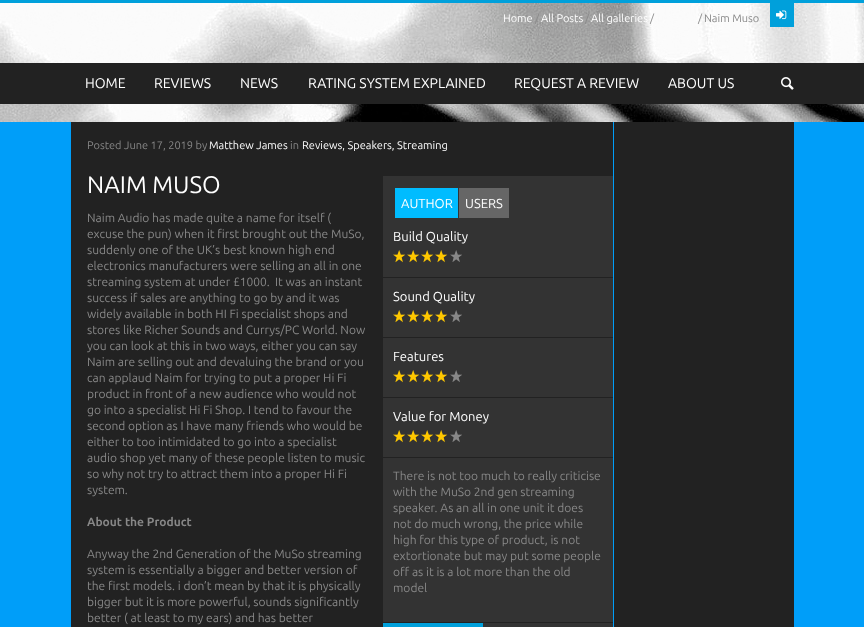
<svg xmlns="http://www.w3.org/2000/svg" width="864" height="627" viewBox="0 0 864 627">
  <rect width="100%" height="100%" fill="#009ef9"/>
  <image x="0" y="3" width="864" height="119" href="img1.png"/>
  <rect x="0" y="0" width="864" height="3" fill="#00a0db"/>
  <text x="503" y="22" font-family="Ubuntu" font-size="11" fill="#ffffff">Home</text>
  <text x="535" y="22" font-family="Ubuntu" font-size="11" fill="#888888">/</text>
  <text x="541" y="22" font-family="Ubuntu" font-size="11" fill="#ffffff">All Posts</text>
  <text x="585" y="22" font-family="Ubuntu" font-size="11" fill="#888888">/</text>
  <text x="591" y="22" font-family="Ubuntu" font-size="11" fill="#ffffff">All galleries</text>
  <text x="650" y="22" font-family="Ubuntu" font-size="11" fill="#888888">/</text>
  <text x="698" y="22" font-family="Ubuntu" font-size="11" fill="#888888">/</text>
  <text x="704" y="22" font-family="Ubuntu" font-size="11" fill="#888888">Naim Muso</text>
  <rect x="770" y="3" width="24" height="24" fill="#00a0db"/>
  <image x="776" y="10" width="11" height="10" href="img2.png"/>
  <rect x="0" y="63" width="864" height="41" fill="#222222"/>
  <text x="85" y="88" font-family="Ubuntu" font-size="14" fill="#ffffff">HOME</text>
  <text x="154" y="88" font-family="Ubuntu" font-size="14" fill="#ffffff">REVIEWS</text>
  <text x="240" y="88" font-family="Ubuntu" font-size="14" fill="#ffffff">NEWS</text>
  <text x="308" y="88" font-family="Ubuntu" font-size="14" fill="#ffffff">RATING SYSTEM EXPLAINED</text>
  <text x="514" y="88" font-family="Ubuntu" font-size="14" fill="#ffffff">REQUEST A REVIEW</text>
  <text x="668" y="88" font-family="Ubuntu" font-size="14" fill="#ffffff">ABOUT US</text>
  <image x="781" y="77" width="13" height="13" href="img3.png"/>
  <rect x="71" y="122" width="542" height="505" fill="#222222"/>
  <text x="87" y="149" font-family="Ubuntu" font-size="11" fill="#888888">Posted June 17, 2019 by</text>
  <text x="209" y="149" font-family="Ubuntu" font-size="11" fill="#ffffff">Matthew James</text>
  <text x="290" y="149" font-family="Ubuntu" font-size="11" fill="#888888">in</text>
  <text x="302" y="149" font-family="Ubuntu" font-size="11" fill="#ffffff">Reviews, Speakers, Streaming</text>
  <text x="87" y="193" font-family="Ubuntu" font-size="24" fill="#ffffff">NAIM MUSO</text>
  <text x="87" y="222" font-family="Ubuntu" font-size="12" fill="#888888">Naim Audio has made quite a name for itself (</text>
  <text x="87" y="238" font-family="Ubuntu" font-size="12" fill="#888888">excuse the pun) when it first brought out the MuSo,</text>
  <text x="87" y="254" font-family="Ubuntu" font-size="12" fill="#888888">suddenly one of the UK’s best known high end</text>
  <text x="87" y="270" font-family="Ubuntu" font-size="12" fill="#888888">electronics manufacturers were selling an all in one</text>
  <text x="87" y="286" font-family="Ubuntu" font-size="12" fill="#888888">streaming system at under £1000.</text>
  <text x="275" y="286" font-family="Ubuntu" font-size="12" fill="#888888">It was an instant</text>
  <text x="87" y="302" font-family="Ubuntu" font-size="12" fill="#888888">success if sales are anything to go by and it was</text>
  <text x="87" y="318" font-family="Ubuntu" font-size="12" fill="#888888">widely available in both HI Fi specialist shops and</text>
  <text x="87" y="334" font-family="Ubuntu" font-size="12" fill="#888888">stores like Richer Sounds and Currys/PC World. Now</text>
  <text x="87" y="350" font-family="Ubuntu" font-size="12" fill="#888888">you can look at this in two ways, either you can say</text>
  <text x="87" y="366" font-family="Ubuntu" font-size="12" fill="#888888">Naim are selling out and devaluing the brand or you</text>
  <text x="87" y="382" font-family="Ubuntu" font-size="12" fill="#888888">can applaud Naim for trying to put a proper Hi Fi</text>
  <text x="87" y="398" font-family="Ubuntu" font-size="12" fill="#888888">product in front of a new audience who would not</text>
  <text x="87" y="414" font-family="Ubuntu" font-size="12" fill="#888888">go into a specialist Hi Fi Shop. I tend to favour the</text>
  <text x="87" y="430" font-family="Ubuntu" font-size="12" fill="#888888">second option as I have many friends who would be</text>
  <text x="87" y="446" font-family="Ubuntu" font-size="12" fill="#888888">either to too intimidated to go into a specialist</text>
  <text x="87" y="462" font-family="Ubuntu" font-size="12" fill="#888888">audio shop yet many of these people listen to music</text>
  <text x="87" y="478" font-family="Ubuntu" font-size="12" fill="#888888">so why not try to attract them into a proper Hi Fi</text>
  <text x="87" y="494" font-family="Ubuntu" font-size="12" fill="#888888">system.</text>
  <text x="87" y="526" font-family="Ubuntu" font-size="12" font-weight="bold" fill="#888888">About the Product</text>
  <text x="87" y="558" font-family="Ubuntu" font-size="12" fill="#888888">Anyway the 2nd Generation of the MuSo streaming</text>
  <text x="87" y="574" font-family="Ubuntu" font-size="12" fill="#888888">system is essentially a bigger and better version of</text>
  <text x="87" y="590" font-family="Ubuntu" font-size="12" fill="#888888">the first models. i don’t mean by that it is physically</text>
  <text x="87" y="606" font-family="Ubuntu" font-size="12" fill="#888888">bigger but it is more powerful, sounds significantly</text>
  <text x="87" y="622" font-family="Ubuntu" font-size="12" fill="#888888">better ( at least to my ears) and has better</text>
  <rect x="383" y="176" width="230" height="101" fill="#333333"/>
  <rect x="395" y="188" width="63" height="30" fill="#00bcff"/>
  <text x="401" y="208" font-family="Ubuntu" font-size="13" fill="#ffffff">AUTHOR</text>
  <rect x="459" y="188" width="50" height="30" fill="#666666"/>
  <text x="465" y="208" font-family="Ubuntu" font-size="13" fill="#ffffff">USERS</text>
  <text x="393" y="241" font-family="Ubuntu" font-size="13" fill="#ffffff">Build Quality</text>
  <image x="393" y="250" width="13" height="13" href="img4.png"/>
  <image x="407" y="250" width="13" height="13" href="img4.png"/>
  <image x="421" y="250" width="13" height="13" href="img4.png"/>
  <image x="435" y="250" width="13" height="13" href="img4.png"/>
  <image x="450" y="250" width="12" height="12" href="img5.png"/>
  <rect x="383" y="278" width="230" height="59" fill="#333333"/>
  <text x="393" y="301" font-family="Ubuntu" font-size="13" fill="#ffffff">Sound Quality</text>
  <image x="393" y="310" width="13" height="13" href="img4.png"/>
  <image x="407" y="310" width="13" height="13" href="img4.png"/>
  <image x="421" y="310" width="13" height="13" href="img4.png"/>
  <image x="435" y="310" width="13" height="13" href="img4.png"/>
  <image x="450" y="310" width="12" height="12" href="img5.png"/>
  <rect x="383" y="338" width="230" height="59" fill="#333333"/>
  <text x="393" y="361" font-family="Ubuntu" font-size="13" fill="#ffffff">Features</text>
  <image x="393" y="370" width="13" height="13" href="img4.png"/>
  <image x="407" y="370" width="13" height="13" href="img4.png"/>
  <image x="421" y="370" width="13" height="13" href="img4.png"/>
  <image x="435" y="370" width="13" height="13" href="img4.png"/>
  <image x="450" y="370" width="12" height="12" href="img5.png"/>
  <rect x="383" y="398" width="230" height="59" fill="#333333"/>
  <text x="393" y="421" font-family="Ubuntu" font-size="13" fill="#ffffff">Value for Money</text>
  <image x="393" y="430" width="13" height="13" href="img4.png"/>
  <image x="407" y="430" width="13" height="13" href="img4.png"/>
  <image x="421" y="430" width="13" height="13" href="img4.png"/>
  <image x="435" y="430" width="13" height="13" href="img4.png"/>
  <image x="450" y="430" width="12" height="12" href="img5.png"/>
  <rect x="383" y="458" width="230" height="164" fill="#333333"/>
  <text x="393" y="480" font-family="Ubuntu" font-size="12" fill="#888888">There is not too much to really criticise</text>
  <text x="393" y="496" font-family="Ubuntu" font-size="12" fill="#888888">with the MuSo 2nd gen streaming</text>
  <text x="393" y="512" font-family="Ubuntu" font-size="12" fill="#888888">speaker. As an all in one unit it does</text>
  <text x="393" y="528" font-family="Ubuntu" font-size="12" fill="#888888">not do much wrong, the price while</text>
  <text x="393" y="544" font-family="Ubuntu" font-size="12" fill="#888888">high for this type of product, is not</text>
  <text x="393" y="560" font-family="Ubuntu" font-size="12" fill="#888888">extortionate but may put some people</text>
  <text x="393" y="576" font-family="Ubuntu" font-size="12" fill="#888888">off as it is a lot more than the old</text>
  <text x="393" y="592" font-family="Ubuntu" font-size="12" fill="#888888">model</text>
  <rect x="483" y="623" width="130" height="4" fill="#333333"/>
  <rect x="383" y="623" width="100" height="4" fill="#00a0db"/>
  <rect x="614" y="122" width="180" height="505" fill="#222222"/>
</svg>
